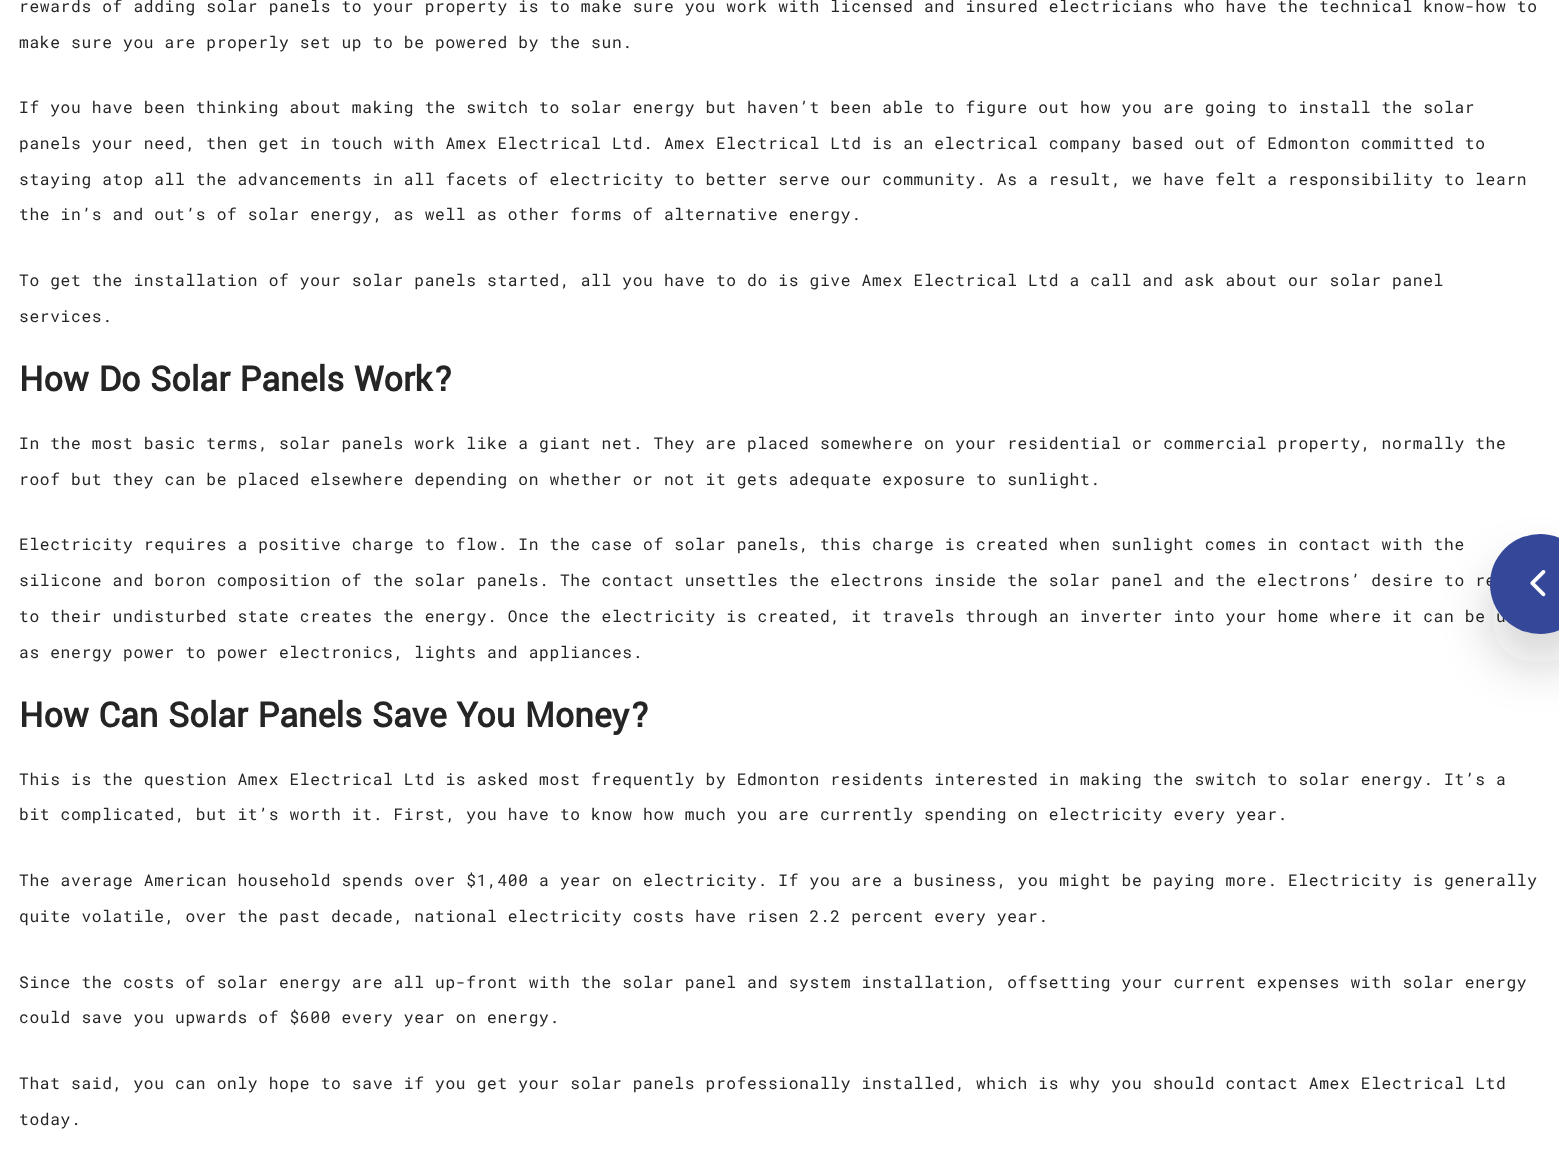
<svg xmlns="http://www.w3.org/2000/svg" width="1559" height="1166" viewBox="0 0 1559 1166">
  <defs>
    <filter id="blur1" x="-50%" y="-200%" width="200%" height="500%"><feGaussianBlur stdDeviation="25"/></filter>
  </defs>
  <rect width="100%" height="100%" fill="#ffffff"/>
  <text x="19" y="12" font-family="Roboto Mono" font-size="16.25" letter-spacing="0.65" fill="#252525">rewards of adding solar panels to your property is to make sure you work with licensed and insured electricians who have the technical know-how to</text>
  <text x="19" y="48" font-family="Roboto Mono" font-size="16.25" letter-spacing="0.65" fill="#252525">make sure you are properly set up to be powered by the sun.</text>
  <text x="19" y="113" font-family="Roboto Mono" font-size="16.25" letter-spacing="0.65" fill="#252525">If you have been thinking about making the switch to solar energy but haven’t been able to figure out how you are going to install the solar</text>
  <text x="19" y="149" font-family="Roboto Mono" font-size="16.25" letter-spacing="0.65" fill="#252525">panels your need, then get in touch with Amex Electrical Ltd. Amex Electrical Ltd is an electrical company based out of Edmonton committed to</text>
  <text x="19" y="185" font-family="Roboto Mono" font-size="16.25" letter-spacing="0.65" fill="#252525">staying atop all the advancements in all facets of electricity to better serve our community. As a result, we have felt a responsibility to learn</text>
  <text x="19" y="220" font-family="Roboto Mono" font-size="16.25" letter-spacing="0.65" fill="#252525">the in’s and out’s of solar energy, as well as other forms of alternative energy.</text>
  <text x="19" y="286" font-family="Roboto Mono" font-size="16.25" letter-spacing="0.65" fill="#252525">To get the installation of your solar panels started, all you have to do is give Amex Electrical Ltd a call and ask about our solar panel</text>
  <text x="19" y="322" font-family="Roboto Mono" font-size="16.25" letter-spacing="0.65" fill="#252525">services.</text>
  <text x="19" y="391" font-family="Yantramanav" font-size="38" font-weight="bold" fill="#252525">How Do Solar Panels Work?</text>
  <text x="19" y="449" font-family="Roboto Mono" font-size="16.25" letter-spacing="0.65" fill="#252525">In the most basic terms, solar panels work like a giant net. They are placed somewhere on your residential or commercial property, normally the</text>
  <text x="19" y="485" font-family="Roboto Mono" font-size="16.25" letter-spacing="0.65" fill="#252525">roof but they can be placed elsewhere depending on whether or not it gets adequate exposure to sunlight.</text>
  <text x="19" y="550" font-family="Roboto Mono" font-size="16.25" letter-spacing="0.65" fill="#252525">Electricity requires a positive charge to flow. In the case of solar panels, this charge is created when sunlight comes in contact with the</text>
  <text x="19" y="586" font-family="Roboto Mono" font-size="16.25" letter-spacing="0.65" fill="#252525">silicone and boron composition of the solar panels. The contact unsettles the electrons inside the solar panel and the electrons’ desire to re</text>
  <text x="19" y="622" font-family="Roboto Mono" font-size="16.25" letter-spacing="0.65" fill="#252525">to their undisturbed state creates the energy. Once the electricity is created, it travels through an inverter into your home where it can be u</text>
  <text x="19" y="658" font-family="Roboto Mono" font-size="16.25" letter-spacing="0.65" fill="#252525">as energy power to power electronics, lights and appliances.</text>
  <text x="19" y="727" font-family="Yantramanav" font-size="38" font-weight="bold" fill="#252525">How Can Solar Panels Save You Money?</text>
  <text x="19" y="785" font-family="Roboto Mono" font-size="16.25" letter-spacing="0.65" fill="#252525">This is the question Amex Electrical Ltd is asked most frequently by Edmonton residents interested in making the switch to solar energy. It’s a</text>
  <text x="19" y="820" font-family="Roboto Mono" font-size="16.25" letter-spacing="0.65" fill="#252525">bit complicated, but it’s worth it. First, you have to know how much you are currently spending on electricity every year.</text>
  <text x="19" y="886" font-family="Roboto Mono" font-size="16.25" letter-spacing="0.65" fill="#252525">The average American household spends over $1,400 a year on electricity. If you are a business, you might be paying more. Electricity is generally</text>
  <text x="19" y="922" font-family="Roboto Mono" font-size="16.25" letter-spacing="0.65" fill="#252525">quite volatile, over the past decade, national electricity costs have risen 2.2 percent every year.</text>
  <text x="19" y="988" font-family="Roboto Mono" font-size="16.25" letter-spacing="0.65" fill="#252525">Since the costs of solar energy are all up-front with the solar panel and system installation, offsetting your current expenses with solar energy</text>
  <text x="19" y="1023" font-family="Roboto Mono" font-size="16.25" letter-spacing="0.65" fill="#252525">could save you upwards of $600 every year on energy.</text>
  <text x="19" y="1089" font-family="Roboto Mono" font-size="16.25" letter-spacing="0.65" fill="#252525">That said, you can only hope to save if you get your solar panels professionally installed, which is why you should contact Amex Electrical Ltd</text>
  <text x="19" y="1125" font-family="Roboto Mono" font-size="16.25" letter-spacing="0.65" fill="#252525">today.</text>
  <rect x="1490" y="565" width="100" height="100" rx="50" fill="#1c1c1c" fill-opacity="0.2" filter="url(#blur1)"/>
  <circle cx="1540" cy="584" r="50" fill="#354799"/>
  <image x="1530" y="570" width="16" height="27" href="img1.png"/>
</svg>
